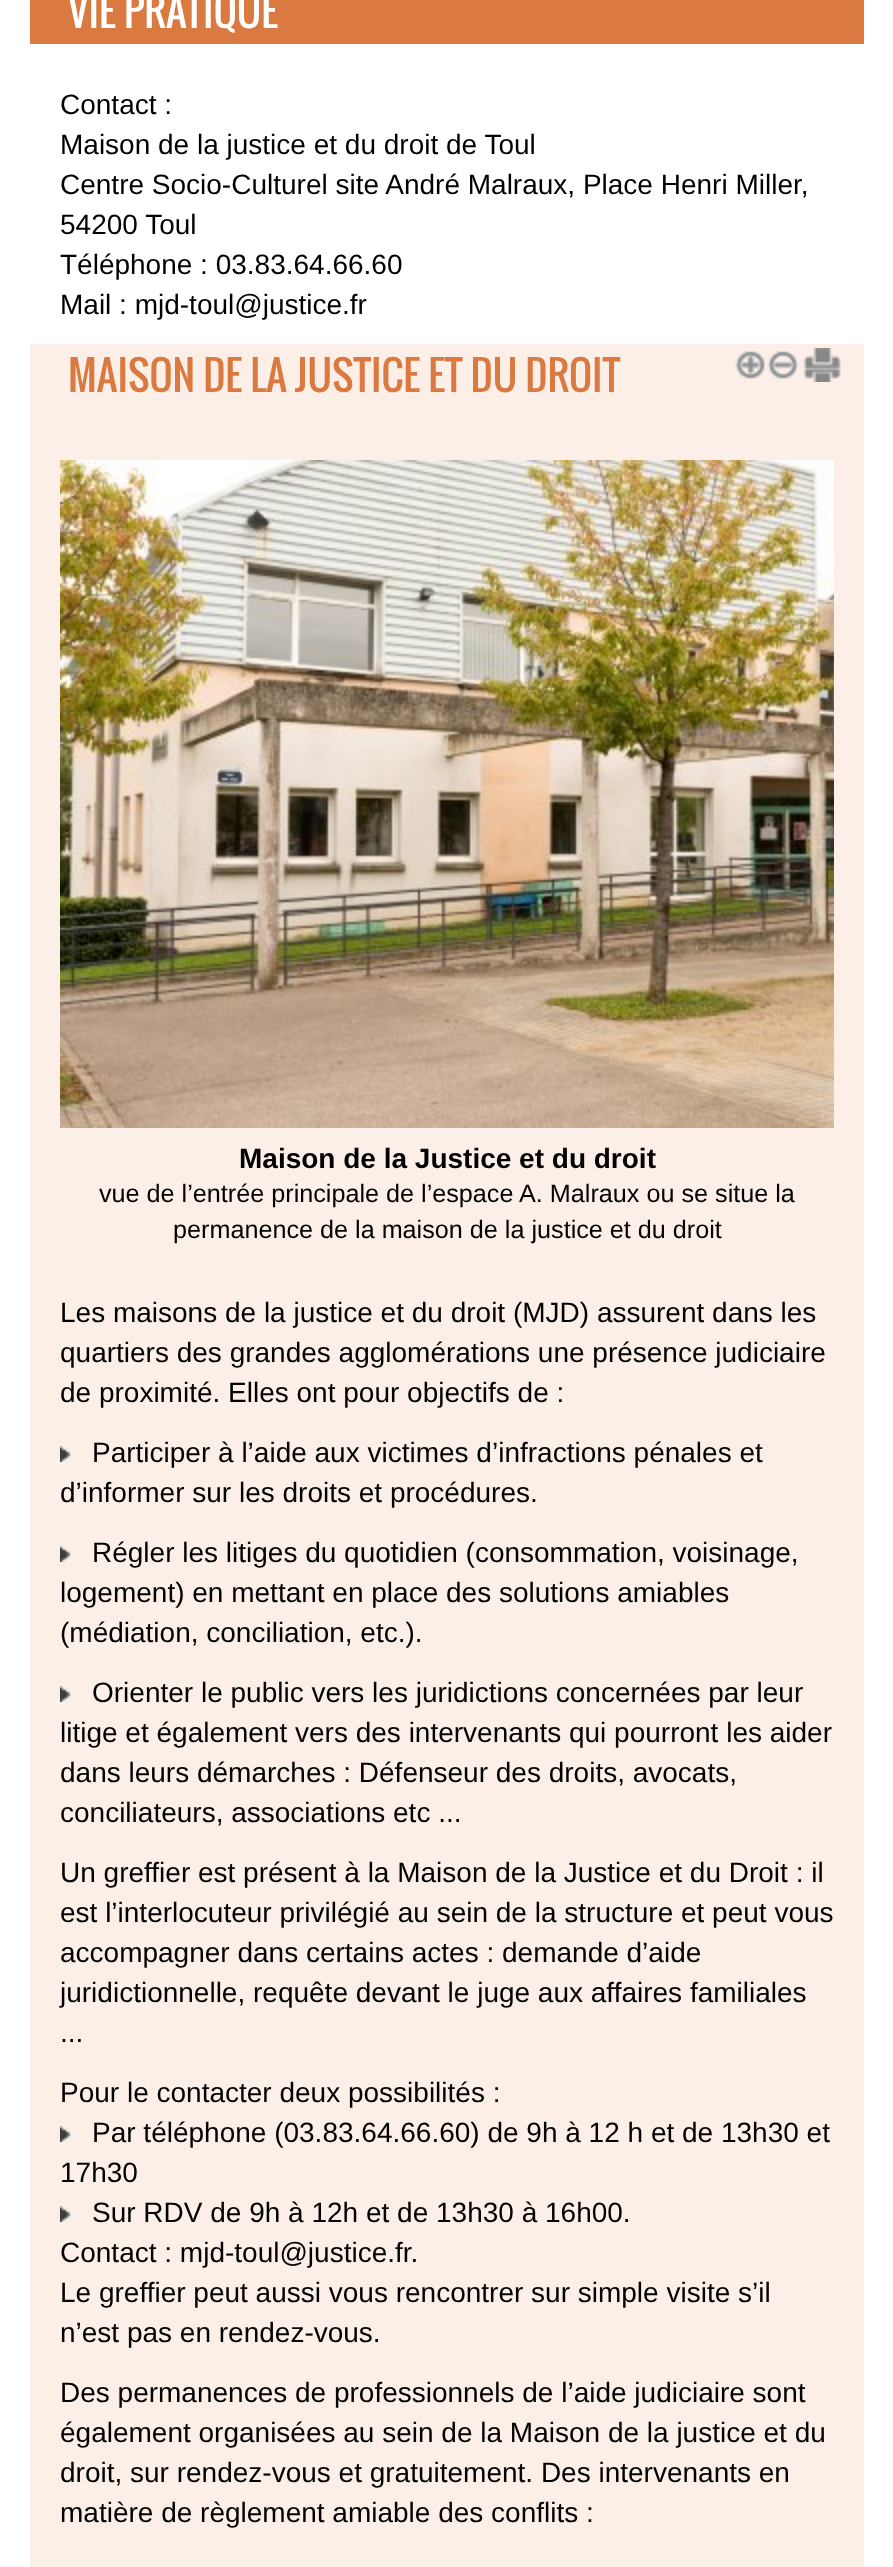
<svg xmlns="http://www.w3.org/2000/svg" width="893" height="2567" viewBox="0 0 893 2567">
  <rect width="100%" height="100%" fill="#ffffff"/>
  <rect x="30" y="0" width="834" height="44" fill="#da7940"/>
  <text x="68" y="28" font-family="Oswald" font-size="40" fill="#ffffff">VIE PRATIQUE</text>
  <text x="60" y="114" font-family="Liberation Sans" font-size="28" fill="#000000">Contact :</text>
  <text x="60" y="154" font-family="Liberation Sans" font-size="28" fill="#000000">Maison de la justice et du droit de Toul</text>
  <text x="60" y="194" font-family="Liberation Sans" font-size="28" fill="#000000">Centre Socio-Culturel site André Malraux, Place Henri Miller,</text>
  <text x="60" y="234" font-family="Liberation Sans" font-size="28" fill="#000000">54200 Toul</text>
  <text x="60" y="274" font-family="Liberation Sans" font-size="28" fill="#000000">Téléphone : 03.83.64.66.60</text>
  <text x="60" y="314" font-family="Liberation Sans" font-size="28" fill="#000000">Mail : mjd-toul@justice.fr</text>
  <rect x="30" y="344" width="834" height="2223" fill="#fbefe8"/>
  <image x="735" y="351" width="30" height="28" href="img1.png"/>
  <image x="767" y="351" width="32" height="28" href="img2.png"/>
  <image x="803" y="348" width="38" height="34" href="img3.png"/>
  <text x="68" y="392" font-family="Oswald" font-size="40" fill="#da7940">MAISON DE LA JUSTICE ET DU DROIT</text>
  <image x="60" y="460" width="774" height="668" href="img4.png"/>
  <text x="239" y="1168" font-family="Liberation Sans" font-size="28" font-weight="bold" fill="#000000">Maison de la Justice et du droit</text>
  <text x="99" y="1202" font-family="Liberation Sans" font-size="25.2" fill="#000000">vue de l’entrée principale de l’espace A. Malraux ou se situe la</text>
  <text x="173" y="1238" font-family="Liberation Sans" font-size="25.2" fill="#000000">permanence de la maison de la justice et du droit</text>
  <text x="60" y="1322" font-family="Liberation Sans" font-size="28" fill="#000000">Les maisons de la justice et du droit (MJD) assurent dans les</text>
  <text x="60" y="1362" font-family="Liberation Sans" font-size="28" fill="#000000">quartiers des grandes agglomérations une présence judiciaire</text>
  <text x="60" y="1402" font-family="Liberation Sans" font-size="28" fill="#000000">de proximité. Elles ont pour objectifs de :</text>
  <image x="60" y="1445" width="11" height="17" href="img5.png"/>
  <text x="92" y="1462" font-family="Liberation Sans" font-size="28" fill="#000000">Participer à l’aide aux victimes d’infractions pénales et</text>
  <text x="60" y="1502" font-family="Liberation Sans" font-size="28" fill="#000000">d’informer sur les droits et procédures.</text>
  <image x="60" y="1545" width="11" height="17" href="img5.png"/>
  <text x="92" y="1562" font-family="Liberation Sans" font-size="28" fill="#000000">Régler les litiges du quotidien (consommation, voisinage,</text>
  <text x="60" y="1602" font-family="Liberation Sans" font-size="28" fill="#000000">logement) en mettant en place des solutions amiables</text>
  <text x="60" y="1642" font-family="Liberation Sans" font-size="28" fill="#000000">(médiation, conciliation, etc.).</text>
  <image x="60" y="1685" width="11" height="17" href="img5.png"/>
  <text x="92" y="1702" font-family="Liberation Sans" font-size="28" fill="#000000">Orienter le public vers les juridictions concernées par leur</text>
  <text x="60" y="1742" font-family="Liberation Sans" font-size="28" fill="#000000">litige et également vers des intervenants qui pourront les aider</text>
  <text x="60" y="1782" font-family="Liberation Sans" font-size="28" fill="#000000">dans leurs démarches : Défenseur des droits, avocats,</text>
  <text x="60" y="1822" font-family="Liberation Sans" font-size="28" fill="#000000">conciliateurs, associations etc ...</text>
  <text x="60" y="1882" font-family="Liberation Sans" font-size="28" fill="#000000">Un greffier est présent à la Maison de la Justice et du Droit : il</text>
  <text x="60" y="1922" font-family="Liberation Sans" font-size="28" fill="#000000">est l’interlocuteur privilégié au sein de la structure et peut vous</text>
  <text x="60" y="1962" font-family="Liberation Sans" font-size="28" fill="#000000">accompagner dans certains actes : demande d’aide</text>
  <text x="60" y="2002" font-family="Liberation Sans" font-size="28" fill="#000000">juridictionnelle, requête devant le juge aux affaires familiales</text>
  <text x="60" y="2042" font-family="Liberation Sans" font-size="28" fill="#000000">...</text>
  <text x="60" y="2102" font-family="Liberation Sans" font-size="28" fill="#000000">Pour le contacter deux possibilités :</text>
  <image x="60" y="2125" width="11" height="17" href="img5.png"/>
  <text x="92" y="2142" font-family="Liberation Sans" font-size="28" fill="#000000">Par téléphone (03.83.64.66.60) de 9h à 12 h et de 13h30 et</text>
  <text x="60" y="2182" font-family="Liberation Sans" font-size="28" fill="#000000">17h30</text>
  <image x="60" y="2205" width="11" height="17" href="img5.png"/>
  <text x="92" y="2222" font-family="Liberation Sans" font-size="28" fill="#000000">Sur RDV de 9h à 12h et de 13h30 à 16h00.</text>
  <text x="60" y="2262" font-family="Liberation Sans" font-size="28" fill="#000000">Contact : mjd-toul@justice.fr.</text>
  <text x="60" y="2302" font-family="Liberation Sans" font-size="28" fill="#000000">Le greffier peut aussi vous rencontrer sur simple visite s’il</text>
  <text x="60" y="2342" font-family="Liberation Sans" font-size="28" fill="#000000">n’est pas en rendez-vous.</text>
  <text x="60" y="2402" font-family="Liberation Sans" font-size="28" fill="#000000">Des permanences de professionnels de l’aide judiciaire sont</text>
  <text x="60" y="2442" font-family="Liberation Sans" font-size="28" fill="#000000">également organisées au sein de la Maison de la justice et du</text>
  <text x="60" y="2482" font-family="Liberation Sans" font-size="28" fill="#000000">droit, sur rendez-vous et gratuitement. Des intervenants en</text>
  <text x="60" y="2522" font-family="Liberation Sans" font-size="28" fill="#000000">matière de règlement amiable des conflits :</text>
</svg>
